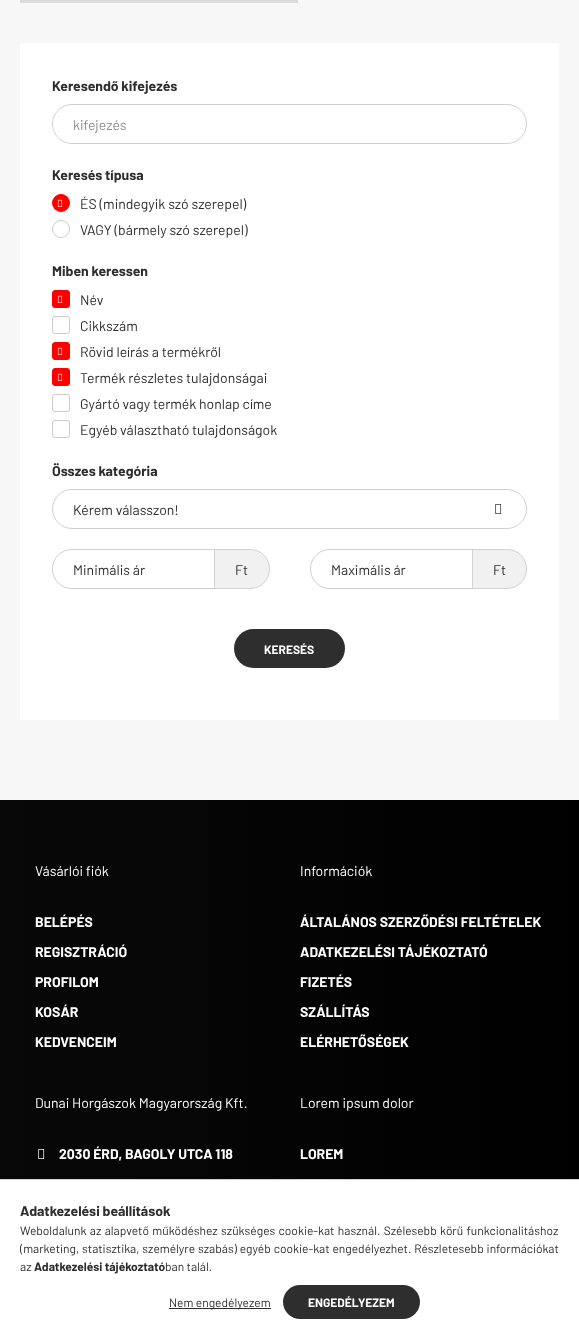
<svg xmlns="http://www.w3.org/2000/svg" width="579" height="1339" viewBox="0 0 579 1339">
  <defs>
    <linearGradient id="g1" gradientUnits="userSpaceOnUse" x1="234" y1="649" x2="567" y2="649"><stop offset="0.33" stop-color="#2e2e2e"/><stop offset="0.67" stop-color="#ff0009"/></linearGradient>
    <linearGradient id="g2" gradientUnits="userSpaceOnUse" x1="0" y1="670" x2="579" y2="670"><stop offset="0" stop-color="#080808"/><stop offset="1" stop-color="#000000"/></linearGradient>
    <linearGradient id="g3" gradientUnits="userSpaceOnUse" x1="283" y1="1302" x2="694" y2="1302"><stop offset="0.33" stop-color="#2e2e2e"/><stop offset="0.67" stop-color="#ff0009"/></linearGradient>
  </defs>
  <rect width="100%" height="100%" fill="#f7f7f7"/>
  <rect x="20" y="0" width="278" height="3" fill="#dbdbdb"/>
  <rect x="20" y="43" width="539" height="677" fill="#ffffff"/>
  <text x="52" y="91" font-family="Barlow" font-size="14" font-weight="bold" fill="#2e2e2e">Keresendő kifejezés</text>
  <rect x="52.5" y="104.5" width="474" height="39" rx="19.5" fill="none" stroke="#d1d1d1"/>
  <text x="73" y="130" font-family="Barlow" font-size="14" fill="#8f8f8f">kifejezés</text>
  <text x="52" y="180" font-family="Barlow" font-size="14" font-weight="bold" fill="#2e2e2e">Keresés típusa</text>
  <circle cx="61" cy="203" r="8.5" fill="#ff0000" stroke="#ff0000"/>
  <image x="57" y="199" width="6" height="8" href="img1.png"/>
  <text x="80" y="209" font-family="Barlow" font-size="14" fill="#2e2e2e">ÉS (mindegyik szó szerepel)</text>
  <circle cx="61" cy="229" r="8.5" fill="none" stroke="#cccccc"/>
  <text x="80" y="235" font-family="Barlow" font-size="14" fill="#2e2e2e">VAGY (bármely szó szerepel)</text>
  <text x="52" y="276" font-family="Barlow" font-size="14" font-weight="bold" fill="#2e2e2e">Miben keressen</text>
  <rect x="52.5" y="290.5" width="17" height="17" rx="2.5" fill="#ff0000" stroke="#ff0000"/>
  <image x="57" y="295" width="6" height="8" href="img1.png"/>
  <text x="80" y="305" font-family="Barlow" font-size="14" fill="#2e2e2e">Név</text>
  <rect x="52.5" y="316.5" width="17" height="17" rx="2.5" fill="none" stroke="#cccccc"/>
  <text x="80" y="331" font-family="Barlow" font-size="14" fill="#2e2e2e">Cikkszám</text>
  <rect x="52.5" y="342.5" width="17" height="17" rx="2.5" fill="#ff0000" stroke="#ff0000"/>
  <image x="57" y="347" width="6" height="8" href="img1.png"/>
  <text x="80" y="357" font-family="Barlow" font-size="14" fill="#2e2e2e">Rövid leírás a termékről</text>
  <rect x="52.5" y="368.5" width="17" height="17" rx="2.5" fill="#ff0000" stroke="#ff0000"/>
  <image x="57" y="373" width="6" height="8" href="img1.png"/>
  <text x="80" y="383" font-family="Barlow" font-size="14" fill="#2e2e2e">Termék részletes tulajdonságai</text>
  <rect x="52.5" y="394.5" width="17" height="17" rx="2.5" fill="none" stroke="#cccccc"/>
  <text x="80" y="409" font-family="Barlow" font-size="14" fill="#2e2e2e">Gyártó vagy termék honlap címe</text>
  <rect x="52.5" y="420.5" width="17" height="17" rx="2.5" fill="none" stroke="#cccccc"/>
  <text x="80" y="435" font-family="Barlow" font-size="14" fill="#2e2e2e">Egyéb választható tulajdonságok</text>
  <text x="52" y="476" font-family="Barlow" font-size="14" font-weight="bold" fill="#2e2e2e">Összes kategória</text>
  <rect x="52.5" y="489.5" width="474" height="39" rx="19.5" fill="none" stroke="#d1d1d1"/>
  <text x="73" y="515" font-family="Barlow" font-size="14" fill="#2e2e2e">Kérem válasszon!</text>
  <image x="495" y="504" width="7" height="10" href="img2.png"/>
  <path d="M214.5 549.5H250C261 549.5 269.5 558 269.5 569C269.5 580 261 588.5 250 588.5H214.5Z" fill="#f1f1f1" stroke="#d1d1d1"/>
  <path d="M72 549.5H214.5V588.5H72C61 588.5 52.5 580 52.5 569C52.5 558 61 549.5 72 549.5Z" fill="none" stroke="#d1d1d1"/>
  <text x="73" y="575" font-family="Barlow" font-size="14" fill="#2e2e2e">Minimális ár</text>
  <text x="235" y="575" font-family="Barlow" font-size="14" fill="#2e2e2e">Ft</text>
  <path d="M472.5 549.5H507C518 549.5 526.5 558 526.5 569C526.5 580 518 588.5 507 588.5H472.5Z" fill="#f1f1f1" stroke="#d1d1d1"/>
  <path d="M330 549.5H472.5V588.5H330C319 588.5 310.5 580 310.5 569C310.5 558 319 549.5 330 549.5Z" fill="none" stroke="#d1d1d1"/>
  <text x="331" y="575" font-family="Barlow" font-size="14" fill="#2e2e2e">Maximális ár</text>
  <text x="493" y="575" font-family="Barlow" font-size="14" fill="#2e2e2e">Ft</text>
  <rect x="234" y="629" width="111" height="39" rx="19.5" fill="url(#g1)"/>
  <text x="264" y="654" font-family="Barlow" font-size="12" font-weight="bold" fill="#ffffff">KERESÉS</text>
  <rect x="0" y="800" width="579" height="379" fill="url(#g2)"/>
  <text x="35" y="876" font-family="Barlow" font-size="14" fill="#ffffff">Vásárlói fiók</text>
  <text x="35" y="927" font-family="Barlow" font-size="14" font-weight="bold" fill="#ffffff">BELÉPÉS</text>
  <text x="35" y="957" font-family="Barlow" font-size="14" font-weight="bold" fill="#ffffff">REGISZTRÁCIÓ</text>
  <text x="35" y="987" font-family="Barlow" font-size="14" font-weight="bold" fill="#ffffff">PROFILOM</text>
  <text x="35" y="1017" font-family="Barlow" font-size="14" font-weight="bold" fill="#ffffff">KOSÁR</text>
  <text x="35" y="1047" font-family="Barlow" font-size="14" font-weight="bold" fill="#ffffff">KEDVENCEIM</text>
  <text x="300" y="876" font-family="Barlow" font-size="14" fill="#ffffff">Információk</text>
  <text x="300" y="927" font-family="Barlow" font-size="14" font-weight="bold" fill="#ffffff">ÁLTALÁNOS SZERZŐDÉSI FELTÉTELEK</text>
  <text x="300" y="957" font-family="Barlow" font-size="14" font-weight="bold" fill="#ffffff">ADATKEZELÉSI TÁJÉKOZTATÓ</text>
  <text x="300" y="987" font-family="Barlow" font-size="14" font-weight="bold" fill="#ffffff">FIZETÉS</text>
  <text x="300" y="1017" font-family="Barlow" font-size="14" font-weight="bold" fill="#ffffff">SZÁLLÍTÁS</text>
  <text x="300" y="1047" font-family="Barlow" font-size="14" font-weight="bold" fill="#ffffff">ELÉRHETŐSÉGEK</text>
  <text x="35" y="1108" font-family="Barlow" font-size="14" fill="#ffffff">Dunai Horgászok Magyarország Kft.</text>
  <image x="38" y="1149" width="7" height="10" href="img3.png"/>
  <text x="59" y="1159" font-family="Barlow" font-size="14" font-weight="bold" fill="#ffffff">2030 ÉRD, BAGOLY UTCA 118</text>
  <text x="300" y="1108" font-family="Barlow" font-size="14" fill="#ffffff">Lorem ipsum dolor</text>
  <text x="300" y="1159" font-family="Barlow" font-size="14" font-weight="bold" fill="#ffffff">LOREM</text>
  <rect x="0" y="1180" width="579" height="159" fill="#ffffff"/>
  <rect x="0" y="1179" width="579" height="1" fill="#d1d1d1"/>
  <text x="20" y="1216" font-family="Barlow" font-size="14" font-weight="bold" fill="#2e2e2e">Adatkezelési beállítások</text>
  <text x="20" y="1235" word-spacing="1" font-family="Barlow" font-size="12" fill="#2e2e2e">Weboldalunk az alapvető működéshez szükséges cookie-kat használ. Szélesebb körű funkcionalitáshoz</text>
  <text x="20" y="1253" word-spacing="0.5" font-family="Barlow" font-size="12" fill="#2e2e2e">(marketing, statisztika, személyre szabás) egyéb cookie-kat engedélyezhet. Részletesebb információkat</text>
  <text x="20" y="1271" font-family="Barlow" font-size="12" fill="#2e2e2e">az</text>
  <text x="34" y="1271" font-family="Barlow" font-size="12" font-weight="bold" fill="#2e2e2e">Adatkezelési tájékoztató</text>
  <text x="165" y="1271" font-family="Barlow" font-size="12" fill="#2e2e2e">ban talál.</text>
  <rect x="169" y="1308" width="102" height="1" fill="#2e2e2e"/>
  <text x="169" y="1307" font-family="Barlow" font-size="12" fill="#2e2e2e">Nem engedélyezem</text>
  <rect x="283" y="1285" width="137" height="34" rx="17" fill="url(#g3)"/>
  <text x="308" y="1307" font-family="Barlow" font-size="12" font-weight="bold" fill="#ffffff">ENGEDÉLYEZEM</text>
</svg>
